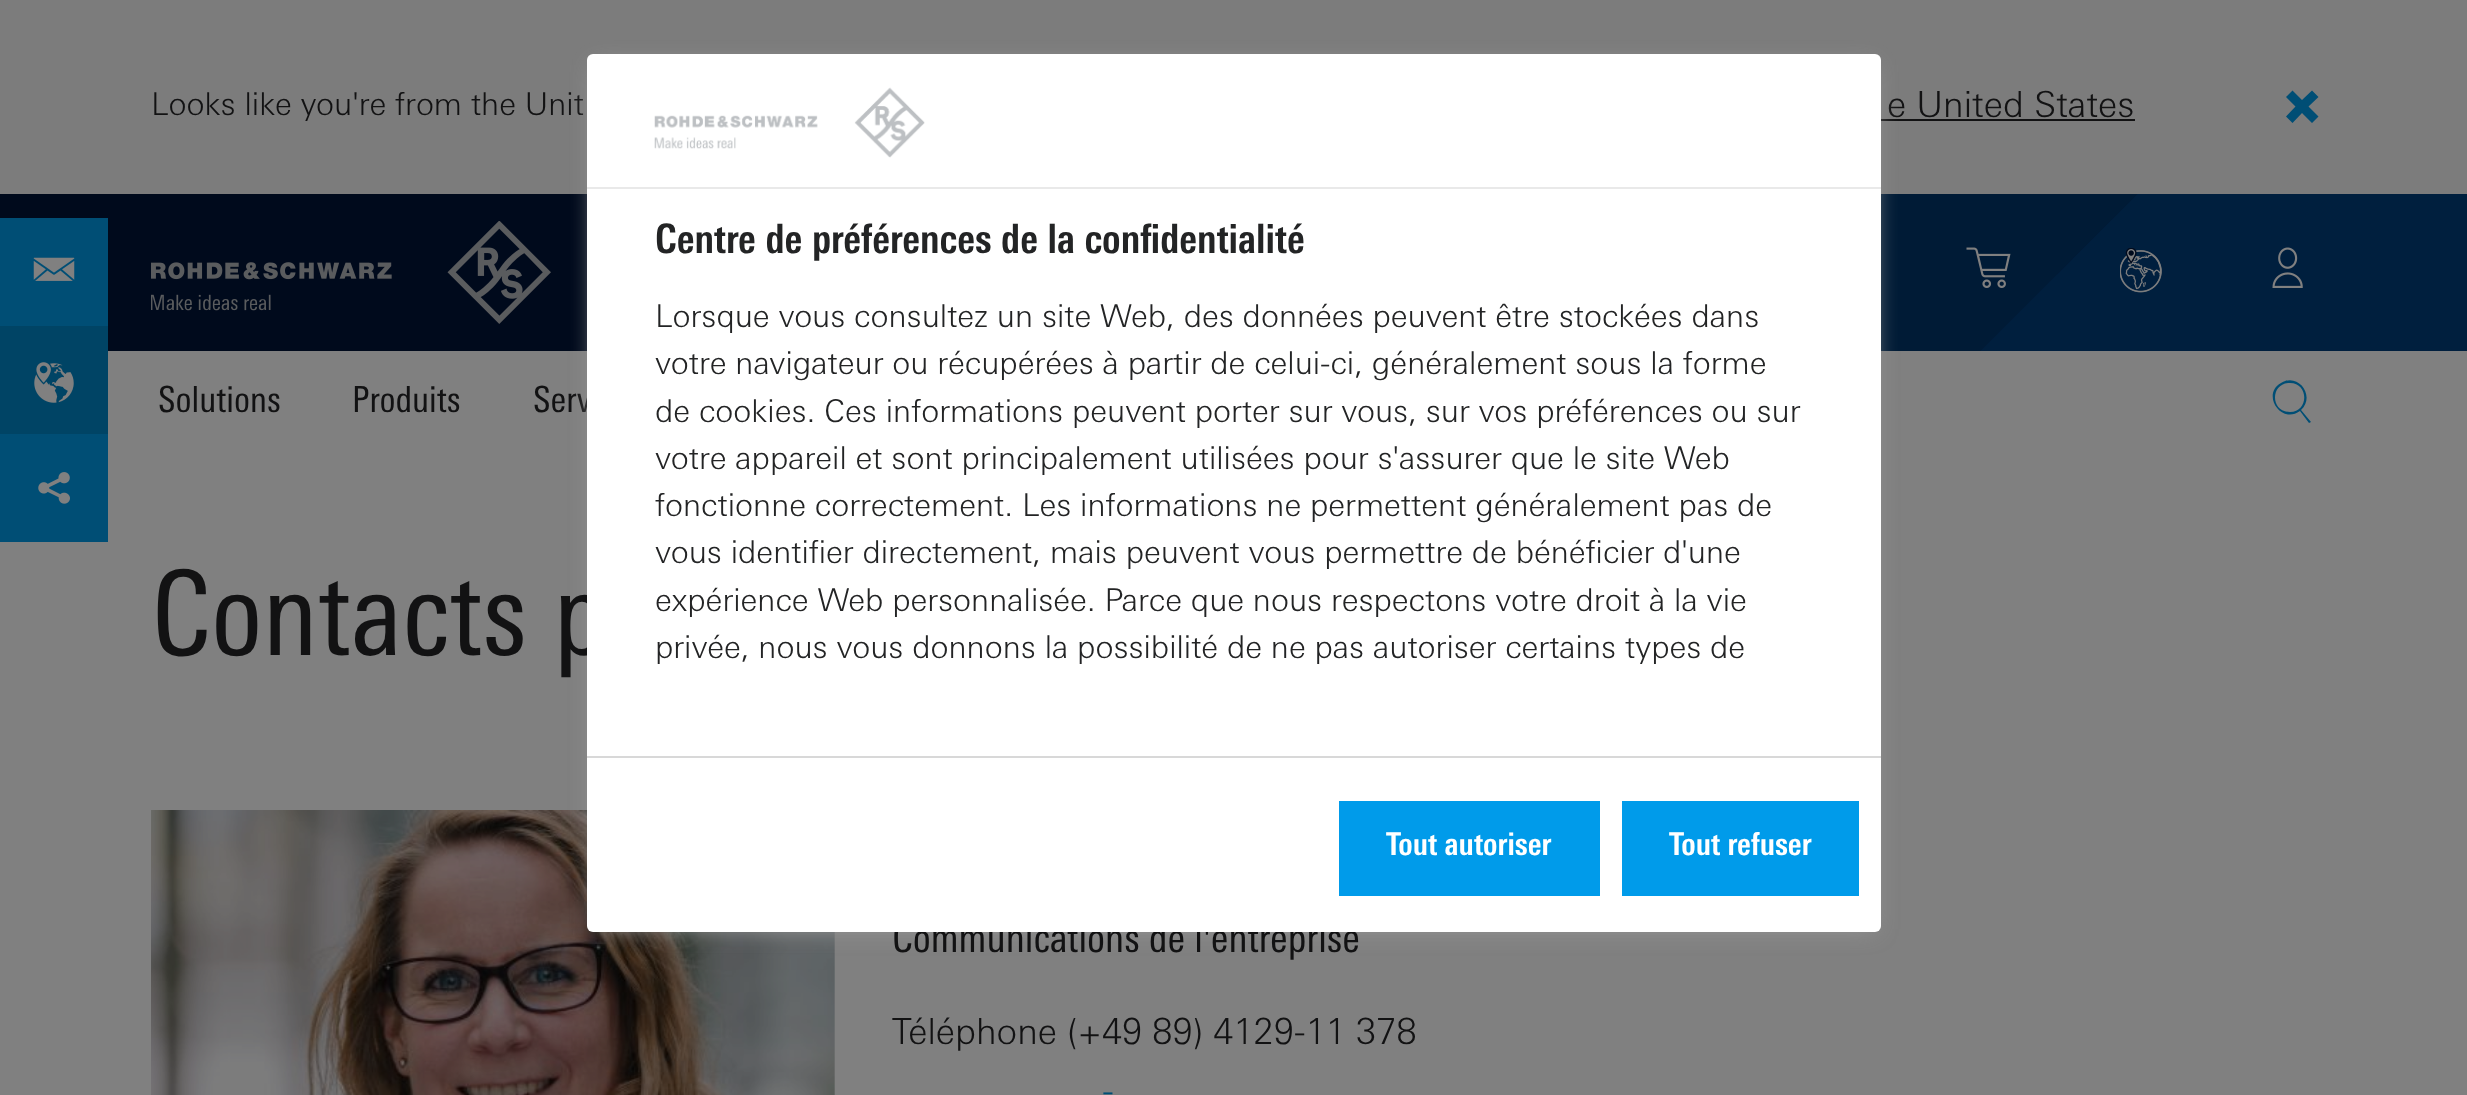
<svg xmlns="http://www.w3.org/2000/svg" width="2467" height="1095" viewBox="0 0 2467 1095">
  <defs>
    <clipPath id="clip1"><rect x="641" y="194" width="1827" height="157"/></clipPath>
    <filter id="blur1" x="-50%" y="-200%" width="200%" height="500%"><feGaussianBlur stdDeviation="11"/></filter>
  </defs>
  <rect width="100%" height="100%" fill="#808080"/>
  <rect x="0" y="0" width="2467" height="194" fill="#7c7c7c"/>
  <text x="151" y="115" font-family="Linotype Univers" font-size="31.5" font-weight="300" fill="#121213">Looks like you're from the Unit</text>
  <text x="1887" y="117" font-family="Linotype Univers" font-size="36" font-weight="300" fill="#121213">e United States</text>
  <rect x="1881" y="119" width="254" height="2" fill="#121213"/>
  <path d="M2308.5 106.5L2318.5 116.5L2312 123L2302 113L2292.5 123L2286 116.5L2295.5 106.5L2286 97L2292.5 90.5L2302 100L2312 90.5L2318.5 97Z" fill="#004e75"/>
  <rect x="0" y="194" width="587" height="157" fill="#000a1c"/>
  <g clip-path="url(#clip1)">
    <path d="M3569 546L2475-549L1380 546L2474 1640Z" fill="#001b36"/>
    <path d="M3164 546L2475-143L1785 546L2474 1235Z" fill="#001f3e"/>
  </g>
  <rect x="0" y="218" width="108" height="108" fill="#004e75"/>
  <image x="33" y="257" width="42" height="24" href="img1.png"/>
  <rect x="0" y="326" width="108" height="108" fill="#004465"/>
  <image x="34" y="362" width="40" height="41" href="img2.png"/>
  <rect x="0" y="434" width="108" height="108" fill="#004e75"/>
  <image x="38" y="472" width="32" height="32" href="img3.png"/>
  <image x="151" y="221" width="400" height="103" href="img4.png"/>
  <image x="1966" y="247" width="45" height="41" href="img5.png"/>
  <image x="2120" y="248" width="42" height="45" href="img6.png"/>
  <image x="2272" y="247" width="31" height="41" href="img7.png"/>
  <text x="158" y="412" font-family="Linotype Univers" font-size="36" fill="#121213">Solutions</text>
  <text x="352" y="412" font-family="Linotype Univers" font-size="36" fill="#121213">Produits</text>
  <text x="533" y="412" font-family="Linotype Univers" font-size="36" fill="#121213">Serv</text>
  <path d="M2281 383C2261 394 2281 425 2300 411L2309 423L2311 422L2301 410C2316 396 2298 372 2281 383ZM2290 383C2309 383 2309 412 2290 412C2270 412 2270 383 2290 383Z" fill="#004e75"/>
  <image x="151" y="810" width="684" height="285" href="img9.png"/>
  <rect x="594" y="65" width="1280" height="864" fill="#999999" filter="url(#blur1)"/>
  <text x="151" y="655" font-family="Linotype Univers" font-size="117" fill="#121213">Contacts p</text>
  <text x="892" y="952" font-family="Linotype Univers" font-size="40.5" fill="#121213">Communications de l'entreprise</text>
  <rect x="587" y="54" width="1294" height="878" rx="6" fill="#ffffff"/>
  <rect x="587" y="187" width="1294" height="2" fill="#e9e9e9"/>
  <image x="654" y="87" width="271" height="71" href="img8.png"/>
  <text x="655" y="253" font-family="Linotype Univers" font-size="40.5" font-weight="bold" fill="#232425">Centre de préférences de la confidentialité</text>
  <text x="655" y="327" font-family="Linotype Univers" font-size="31.5" font-weight="300" fill="#232425">Lorsque vous consultez un site Web, des données peuvent être stockées dans</text>
  <text x="655" y="374" font-family="Linotype Univers" font-size="31.5" font-weight="300" fill="#232425">votre navigateur ou récupérées à partir de celui-ci, généralement sous la forme</text>
  <text x="655" y="422" font-family="Linotype Univers" font-size="31.5" font-weight="300" fill="#232425">de cookies. Ces informations peuvent porter sur vous, sur vos préférences ou sur</text>
  <text x="655" y="469" font-family="Linotype Univers" font-size="31.5" font-weight="300" fill="#232425">votre appareil et sont principalement utilisées pour s'assurer que le site Web</text>
  <text x="655" y="516" font-family="Linotype Univers" font-size="31.5" font-weight="300" fill="#232425">fonctionne correctement. Les informations ne permettent généralement pas de</text>
  <text x="655" y="563" font-family="Linotype Univers" font-size="31.5" font-weight="300" fill="#232425">vous identifier directement, mais peuvent vous permettre de bénéficier d'une</text>
  <text x="655" y="611" font-family="Linotype Univers" font-size="31.5" font-weight="300" fill="#232425">expérience Web personnalisée. Parce que nous respectons votre droit à la vie</text>
  <text x="655" y="658" font-family="Linotype Univers" font-size="31.5" font-weight="300" fill="#232425">privée, nous vous donnons la possibilité de ne pas autoriser certains types de</text>
  <rect x="587" y="756" width="1294" height="2" fill="#d8d8d8"/>
  <rect x="1339" y="801" width="261" height="95" fill="#009bea"/>
  <text x="1386" y="855" font-family="Linotype Univers" font-size="31.5" font-weight="bold" fill="#ffffff">Tout autoriser</text>
  <rect x="1622" y="801" width="237" height="95" fill="#009bea"/>
  <text x="1669" y="855" font-family="Linotype Univers" font-size="31.5" font-weight="bold" fill="#ffffff">Tout refuser</text>
  <text x="892" y="1044" font-family="Linotype Univers" font-size="36" font-weight="300" fill="#121213">Téléphone (+49 89) 4129-11 378</text>
  <text x="1102" y="1103" font-family="Linotype Univers" font-size="36" font-weight="300" fill="#004e75">-</text>
</svg>
